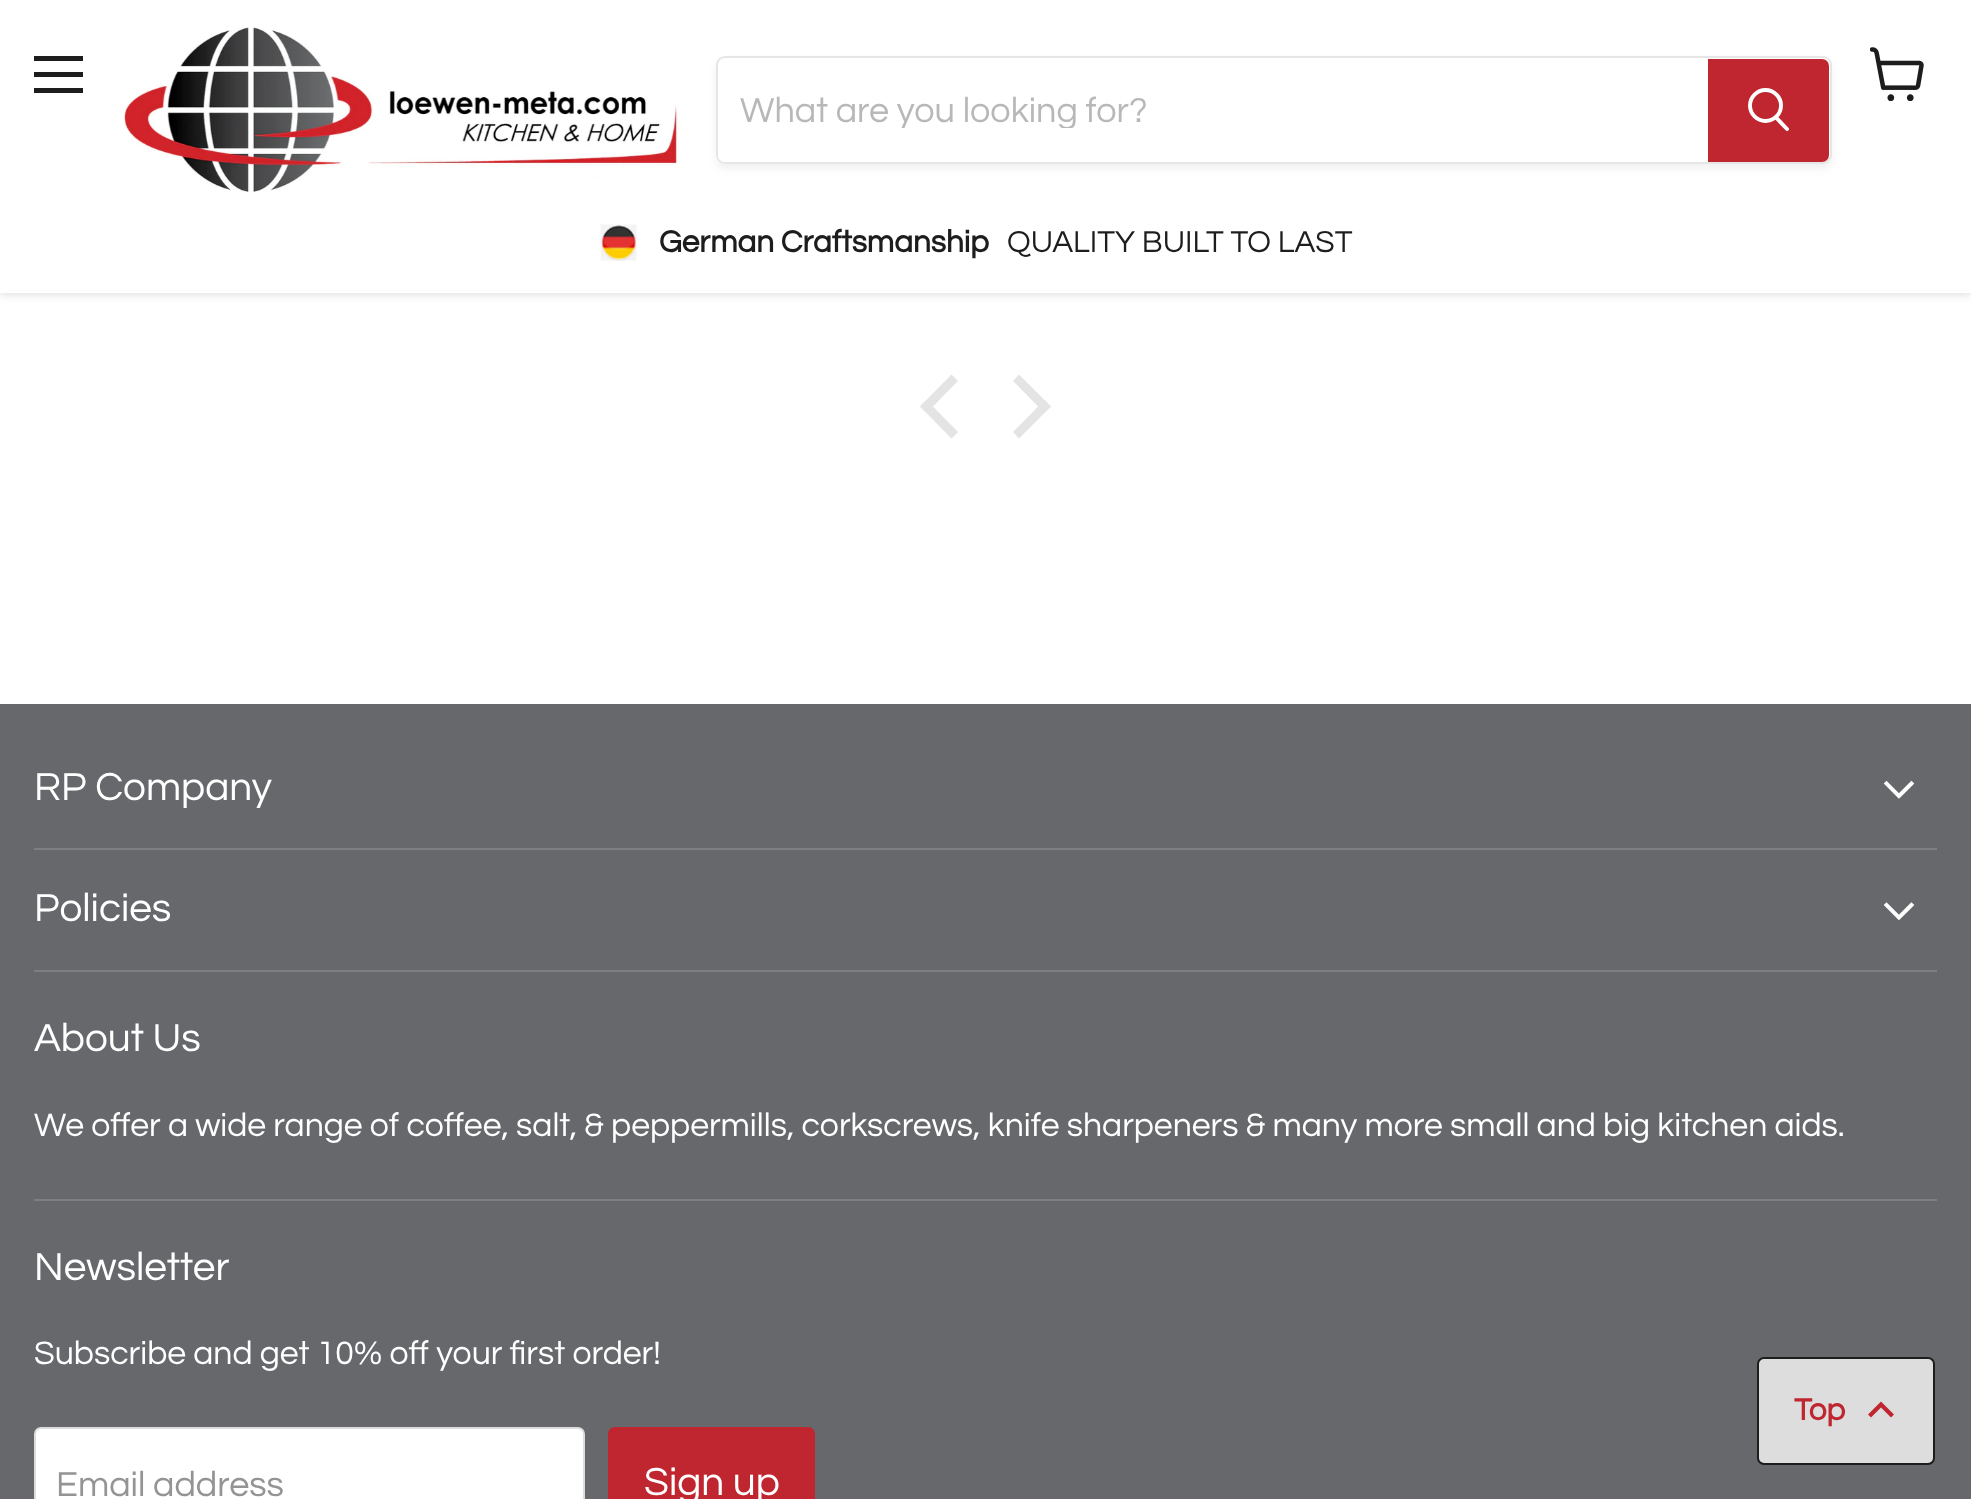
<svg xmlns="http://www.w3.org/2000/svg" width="1971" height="1499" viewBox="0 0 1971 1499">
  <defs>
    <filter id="blur1" x="-50%" y="-200%" width="200%" height="500%"><feGaussianBlur stdDeviation="4.5"/></filter>
    <clipPath id="clip1"><path d="M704 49H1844V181H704ZM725 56H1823C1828 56 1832 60 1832 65V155C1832 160 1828 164 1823 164H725C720 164 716 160 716 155V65C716 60 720 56 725 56Z" clip-rule="evenodd"/></clipPath>
    <filter id="blur2" x="-50%" y="-200%" width="200%" height="500%"><feGaussianBlur stdDeviation="3.5"/></filter>
    <clipPath id="clip2"><rect x="740" y="92" width="945" height="36"/></clipPath>
  </defs>
  <rect width="100%" height="100%" fill="#ffffff"/>
  <rect x="0" y="2" width="1971" height="293" fill="#808080" fill-opacity="0.25" filter="url(#blur1)"/>
  <rect x="0" y="0" width="1971" height="293" fill="#ffffff"/>
  <rect x="34" y="56" width="49" height="5" fill="#1d1d1d"/>
  <rect x="34" y="72" width="49" height="5" fill="#1d1d1d"/>
  <rect x="34" y="88" width="49" height="5" fill="#1d1d1d"/>
  <image x="1870" y="47" width="54" height="54" href="img1.png"/>
  <image x="122" y="27" width="556" height="165" href="img2.png"/>
  <g clip-path="url(#clip1)">
    <rect x="716" y="61" width="1116" height="108" rx="9" fill="#808080" fill-opacity="0.11" filter="url(#blur2)"/>
  </g>
  <rect x="717" y="57" width="1114" height="106" rx="8" fill="none" stroke="#808080" stroke-opacity="0.2" stroke-width="2"/>
  <path d="M725 59H1708V162H725C721 162 718 159 718 155V66C718 62 721 59 725 59Z" fill="#ffffff"/>
  <g clip-path="url(#clip2)">
    <text x="740" y="122" font-family="Questrial" font-size="36" fill="#b8b8b8">What are you looking for?</text>
  </g>
  <path d="M1709 60H1822C1825.5 60 1828 62.5 1828 66V155C1828 158.5 1825.5 161 1822 161H1709Z" fill="#bf262f" stroke="#bf262f" stroke-width="2"/>
  <path d="M1787 129L1776.5 118" fill="none" stroke="#ffffff" stroke-width="3.9" stroke-linecap="round"/>
  <circle cx="1765.5" cy="105.5" r="15.5" fill="none" stroke="#ffffff" stroke-width="3.9"/>
  <image x="600" y="224" width="37" height="37" href="img3.png"/>
  <text x="659" y="252" font-family="Questrial" font-size="31.5" font-weight="bold" fill="#1d1d1d">German Craftsmanship</text>
  <text x="1007" y="252" font-family="Questrial" font-size="31.5" fill="#1d1d1d">QUALITY BUILT TO LAST</text>
  <path d="M920 406.5L951.5 374.5L958 381L926.5 413Z" fill="#e4e4e4"/>
  <path d="M920 406.5L926.5 400L958 432L951.5 438.5Z" fill="#e4e4e4"/>
  <path d="M1013 381L1019 374.5L1051 406.5L1044.5 413Z" fill="#e4e4e4"/>
  <path d="M1013 432L1044.5 400L1051 406.5L1019 438.5Z" fill="#e4e4e4"/>
  <rect x="0" y="704" width="1971" height="795" fill="#67686b"/>
  <rect x="34" y="848" width="1903" height="2" fill="#7e7f81"/>
  <text x="34" y="800" font-family="Questrial" font-size="40.5" fill="#ffffff">RP Company</text>
  <path d="M1899 796L1911.5 783.5M1899 796L1886.5 783.5" fill="none" stroke="#ffffff" stroke-width="3.9" stroke-linecap="square"/>
  <rect x="34" y="970" width="1903" height="2" fill="#7e7f81"/>
  <text x="34" y="921" font-family="Questrial" font-size="40.5" fill="#ffffff">Policies</text>
  <path d="M1899 917.5L1911.5 905M1899 917.5L1886.5 905" fill="none" stroke="#ffffff" stroke-width="3.9" stroke-linecap="square"/>
  <rect x="34" y="1199" width="1903" height="2" fill="#7e7f81"/>
  <text x="34" y="1051" font-family="Questrial" font-size="40.5" fill="#ffffff">About Us</text>
  <text x="34" y="1136" font-family="Questrial" font-size="33.75" fill="#ffffff">We offer a wide range of coffee, salt, &amp; peppermills, corkscrews, knife sharpeners &amp; many more small and big kitchen aids.</text>
  <text x="34" y="1280" font-family="Questrial" font-size="40.5" fill="#ffffff">Newsletter</text>
  <text x="34" y="1364" font-family="Questrial" font-size="33.75" fill="#ffffff">Subscribe and get 10% off your first order!</text>
  <rect x="35" y="1428" width="549" height="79" rx="6" fill="#ffffff" stroke="#dddddd" stroke-width="2"/>
  <text x="56" y="1496" font-family="Questrial" font-size="36" fill="#949494">Email address</text>
  <rect x="609" y="1428" width="205" height="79" rx="6" fill="#bf262f" stroke="#bf262f" stroke-width="2"/>
  <text x="644" y="1495" font-family="Questrial" font-size="40.5" fill="#ffffff">Sign up</text>
  <rect x="1758" y="1358" width="176" height="106" rx="6" fill="#dddddd" stroke="#1d1d1d" stroke-width="2"/>
  <text x="1794" y="1420" font-family="Questrial" font-size="31.5" font-weight="bold" fill="#bf262f">Top</text>
  <path d="M1881 1404.5L1871 1414.5M1881 1404.5L1891 1414.5" fill="none" stroke="#bf262f" stroke-width="4.2" stroke-linecap="square"/>
</svg>
